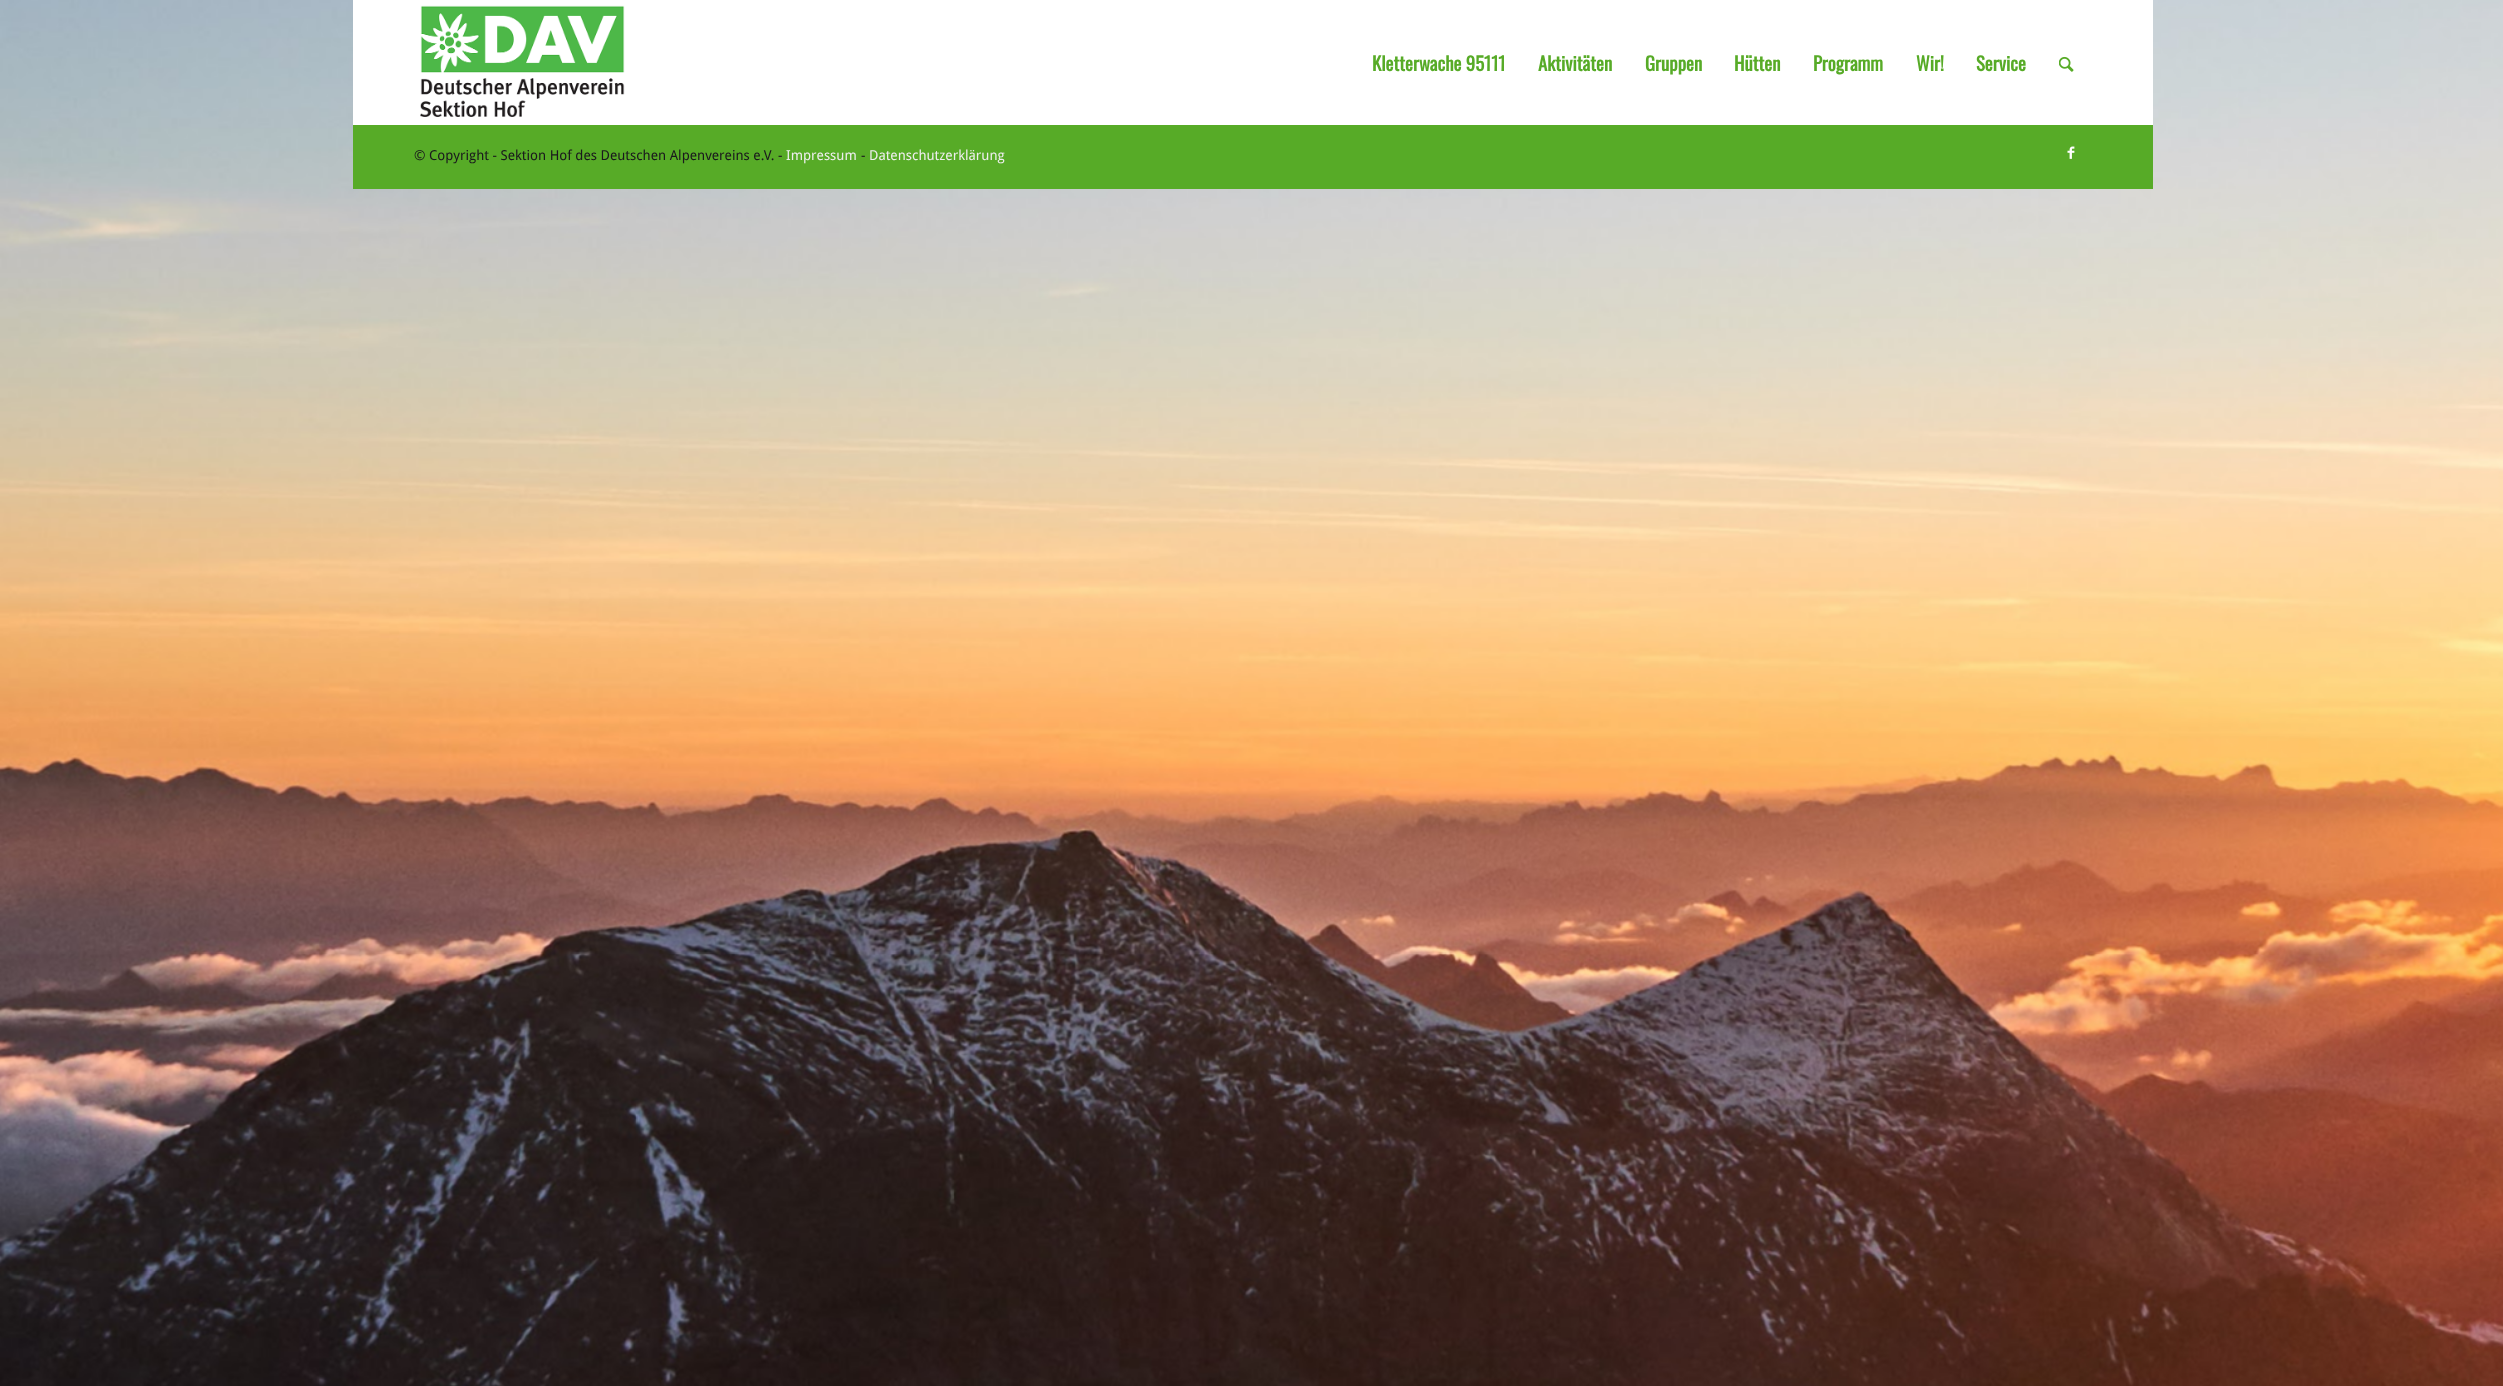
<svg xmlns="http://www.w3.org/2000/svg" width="2503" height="1386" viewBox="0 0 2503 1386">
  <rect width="100%" height="100%" fill="#ffffff"/>
  <image x="0" y="0" width="2503" height="1386" href="img1.png"/>
  <rect x="353" y="0" width="1800" height="125" fill="#ffffff"/>
  <image x="420" y="5" width="205" height="112" href="img2.png"/>
  <text x="1372" y="71" font-family="Oswald" font-size="18.75" font-weight="bold" fill="#57ab27">Kletterwache 95111</text>
  <text x="1538" y="71" font-family="Oswald" font-size="18.75" font-weight="bold" fill="#57ab27">Aktivitäten</text>
  <text x="1645" y="71" font-family="Oswald" font-size="18.75" font-weight="bold" fill="#57ab27">Gruppen</text>
  <text x="1734" y="71" font-family="Oswald" font-size="18.75" font-weight="bold" fill="#57ab27">Hütten</text>
  <text x="1813" y="71" font-family="Oswald" font-size="18.75" font-weight="bold" fill="#57ab27">Programm</text>
  <text x="1916" y="71" font-family="Oswald" font-size="18.75" font-weight="bold" fill="#57ab27">Wir!</text>
  <text x="1976" y="71" font-family="Oswald" font-size="18.75" font-weight="bold" fill="#57ab27">Service</text>
  <image x="2059" y="56" width="15" height="16" href="img3.png"/>
  <rect x="353" y="125" width="1800" height="64" fill="#57ab27"/>
  <text x="414" y="160" font-family="Droid Sans" font-size="13.75" fill="#1a181d">© Copyright - Sektion Hof des Deutschen Alpenvereins e.V. -</text>
  <text x="786" y="160" font-family="Droid Sans" font-size="13.75" fill="#eeeeee">Impressum</text>
  <text x="861" y="160" font-family="Droid Sans" font-size="13.75" fill="#1a181d">-</text>
  <text x="869" y="160" font-family="Droid Sans" font-size="13.75" fill="#eeeeee">Datenschutzerklärung</text>
  <image x="2067" y="146" width="8" height="13" href="img4.png"/>
</svg>
